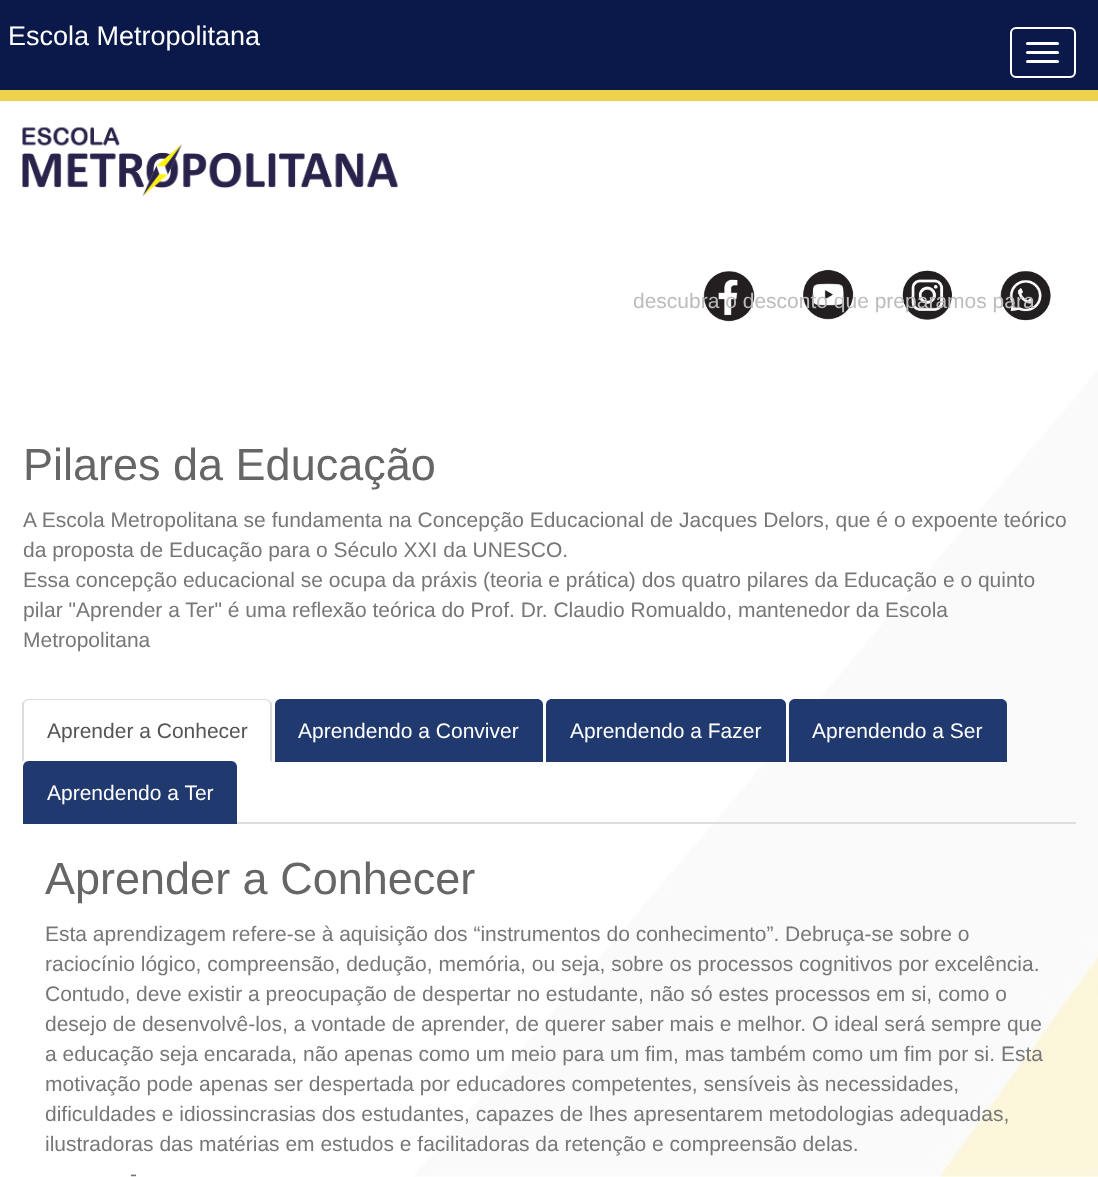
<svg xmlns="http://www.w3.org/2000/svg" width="1098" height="1177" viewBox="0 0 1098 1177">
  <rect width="100%" height="100%" fill="#ffffff"/>
  <rect x="0" y="0" width="1098" height="90" fill="#0b194a"/>
  <rect x="0" y="90" width="1098" height="11" fill="#eed24b"/>
  <text x="8" y="45" font-family="Liberation Sans" font-size="27" fill="#ffffff">Escola Metropolitana</text>
  <rect x="1011" y="28" width="64" height="49" rx="5" fill="none" stroke="#ffffff" stroke-width="2"/>
  <rect x="1026" y="42" width="33" height="3" rx="1.5" fill="#ffffff"/>
  <rect x="1026" y="51" width="33" height="3" rx="1.5" fill="#ffffff"/>
  <rect x="1026" y="60" width="33" height="3" rx="1.5" fill="#ffffff"/>
  <image x="22" y="127" width="376" height="70" href="img1.png"/>
  <image x="703" y="271" width="52" height="51" href="img2.png"/>
  <image x="803" y="269" width="51" height="51" href="img3.png"/>
  <image x="902" y="270" width="51" height="50" href="img4.png"/>
  <image x="1000" y="271" width="51" height="50" href="img5.png"/>
  <text x="633" y="308" font-family="Liberation Sans" font-size="21" fill="#bdbcbc">descubra o desconto que preparamos para</text>
  <image x="411" y="370" width="687" height="807" href="img6.png"/>
  <text x="23" y="480" font-family="Liberation Sans" font-size="45" fill="#666666">Pilares da Educação</text>
  <text x="23" y="527" font-family="Liberation Sans" font-size="21" fill="#777777">A Escola Metropolitana se fundamenta na Concepção Educacional de Jacques Delors, que é o expoente teórico</text>
  <text x="23" y="557" font-family="Liberation Sans" font-size="21" fill="#777777">da proposta de Educação para o Século XXI da UNESCO.</text>
  <text x="23" y="587" font-family="Liberation Sans" font-size="21" fill="#777777">Essa concepção educacional se ocupa da práxis (teoria e prática) dos quatro pilares da Educação e o quinto</text>
  <text x="23" y="617" font-family="Liberation Sans" font-size="21" fill="#777777">pilar "Aprender a Ter" é uma reflexão teórica do Prof. Dr. Claudio Romualdo, mantenedor da Escola</text>
  <text x="23" y="647" font-family="Liberation Sans" font-size="21" fill="#777777">Metropolitana</text>
  <rect x="237" y="822" width="839" height="2" fill="#dddddd"/>
  <path d="M28 699C27 699 25 700 24 701L25 702L28 700H266C267 700 268 701 269 702L270 701C269 700 267 699 266 699Z" fill="#dddddd"/>
  <path d="M272 703V762L270 760V705C270 704 270 703 269 702L270 701Z" fill="#dddddd"/>
  <path d="M22 762V703L24 701L25 702C24 703 24 704 24 705V760Z" fill="#dddddd"/>
  <text x="47" y="738" font-family="Liberation Sans" font-size="21" fill="#555555">Aprender a Conhecer</text>
  <path d="M281 699H537C540.5 699 543 701.5 543 705V762H275V705C275 701.5 277.5 699 281 699Z" fill="#20396e"/>
  <text x="298" y="738" font-family="Liberation Sans" font-size="21" fill="#ffffff">Aprendendo a Conviver</text>
  <path d="M552 699H780C783.5 699 786 701.5 786 705V762H546V705C546 701.5 548.5 699 552 699Z" fill="#20396e"/>
  <text x="570" y="738" font-family="Liberation Sans" font-size="21" fill="#ffffff">Aprendendo a Fazer</text>
  <path d="M795 699H1001C1004.5 699 1007 701.5 1007 705V762H789V705C789 701.5 791.5 699 795 699Z" fill="#20396e"/>
  <text x="812" y="738" font-family="Liberation Sans" font-size="21" fill="#ffffff">Aprendendo a Ser</text>
  <path d="M29 761H231C234.5 761 237 763.5 237 767V824H23V767C23 763.5 25.5 761 29 761Z" fill="#20396e"/>
  <text x="47" y="800" font-family="Liberation Sans" font-size="21" fill="#ffffff">Aprendendo a Ter</text>
  <text x="45" y="894" font-family="Liberation Sans" font-size="45" fill="#666666">Aprender a Conhecer</text>
  <text x="45" y="941" font-family="Liberation Sans" font-size="21" fill="#777777">Esta aprendizagem refere-se à aquisição dos “instrumentos do conhecimento”. Debruça-se sobre o</text>
  <text x="45" y="971" font-family="Liberation Sans" font-size="21" fill="#777777">raciocínio lógico, compreensão, dedução, memória, ou seja, sobre os processos cognitivos por excelência.</text>
  <text x="45" y="1001" font-family="Liberation Sans" font-size="21" fill="#777777">Contudo, deve existir a preocupação de despertar no estudante, não só estes processos em si, como o</text>
  <text x="45" y="1031" font-family="Liberation Sans" font-size="21" fill="#777777">desejo de desenvolvê-los, a vontade de aprender, de querer saber mais e melhor. O ideal será sempre que</text>
  <text x="45" y="1061" font-family="Liberation Sans" font-size="21" fill="#777777">a educação seja encarada, não apenas como um meio para um fim, mas também como um fim por si. Esta</text>
  <text x="45" y="1091" font-family="Liberation Sans" font-size="21" fill="#777777">motivação pode apenas ser despertada por educadores competentes, sensíveis às necessidades,</text>
  <text x="45" y="1121" font-family="Liberation Sans" font-size="21" fill="#777777">dificuldades e idiossincrasias dos estudantes, capazes de lhes apresentarem metodologias adequadas,</text>
  <text x="45" y="1151" font-family="Liberation Sans" font-size="21" fill="#777777">ilustradoras das matérias em estudos e facilitadoras da retenção e compreensão delas.</text>
  <text x="130" y="1181" font-family="Liberation Sans" font-size="21" fill="#777777">-</text>
</svg>
